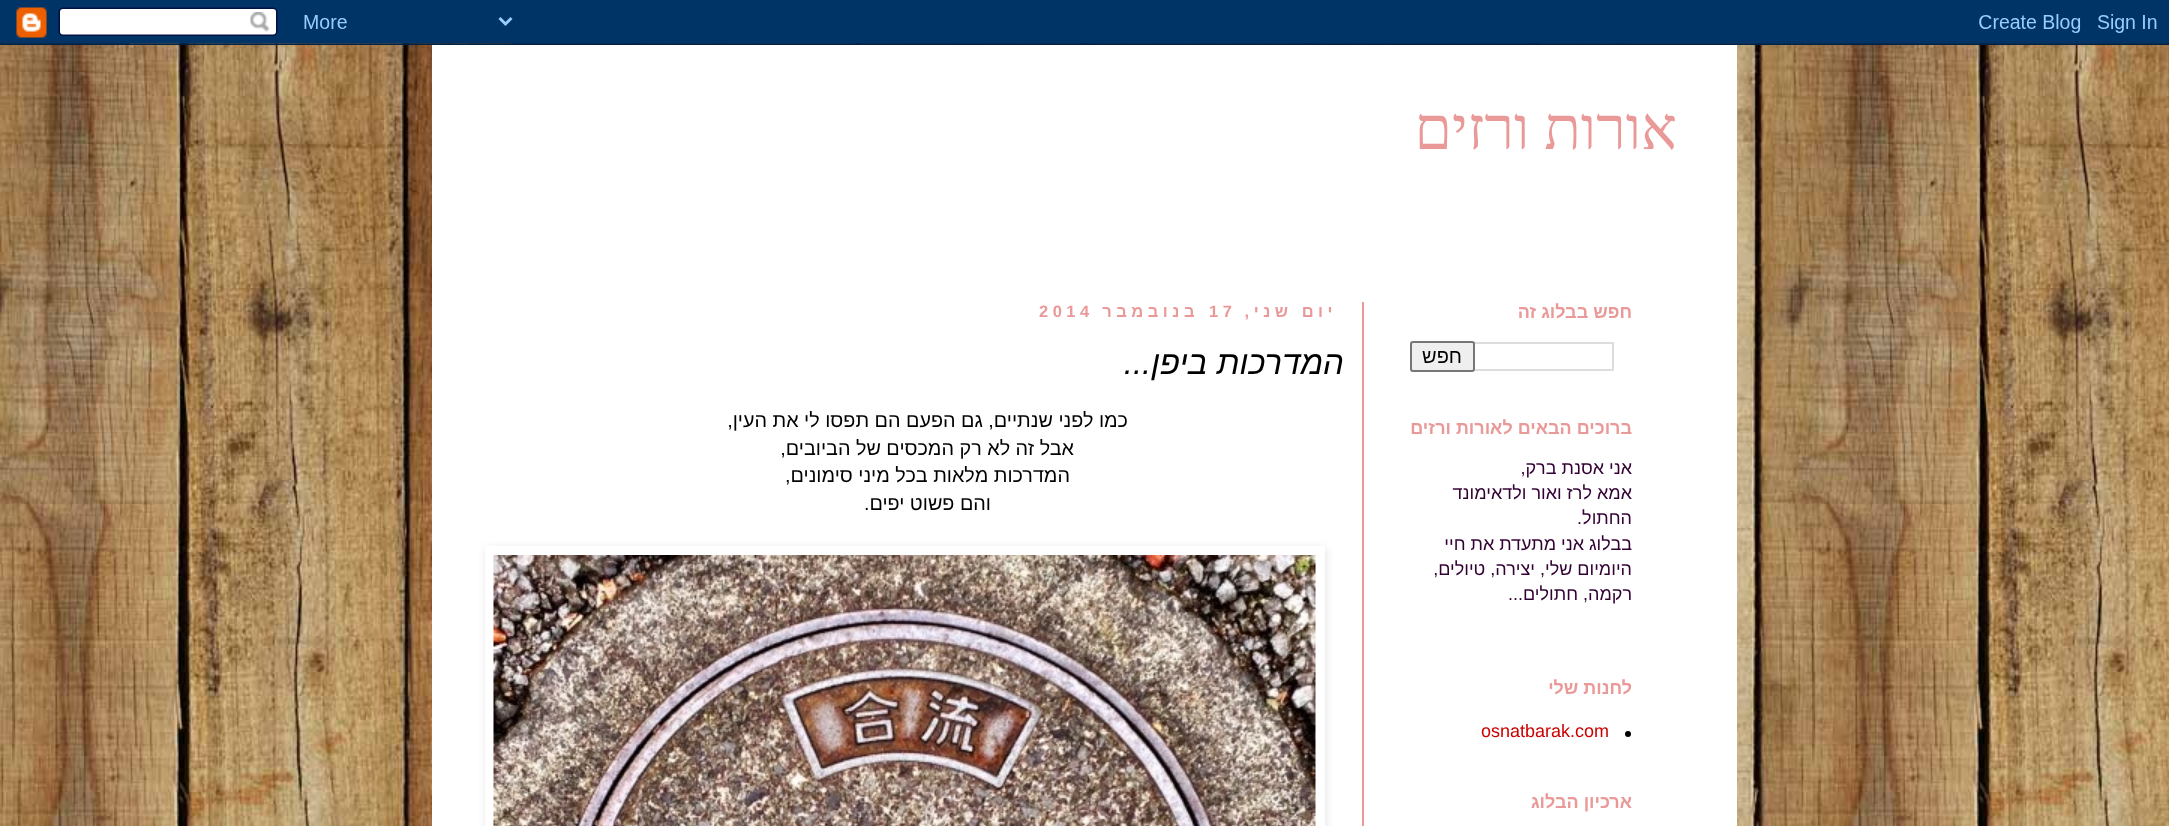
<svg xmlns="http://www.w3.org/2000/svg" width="2169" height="826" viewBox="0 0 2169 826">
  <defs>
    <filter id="blur1" x="-50%" y="-200%" width="200%" height="500%"><feGaussianBlur stdDeviation="4"/></filter>
  </defs>
  <rect width="100%" height="100%" fill="#ffffff"/>
  <image x="0" y="43" width="2169" height="783" href="img1.png"/>
  <image x="0" y="0" width="2169" height="45" href="img2.png"/>
  <rect x="432" y="45" width="1305" height="781" fill="#ffffff"/>
  <text x="1677" y="149" font-family="Liberation Serif" font-size="60" direction="rtl" fill="#ea9999">אורות ורזים</text>
  <rect x="1362" y="302" width="2" height="524" fill="#ea9999"/>
  <text x="1632" y="318" font-family="Liberation Sans" font-size="18" font-weight="bold" direction="rtl" fill="#ea9999">חפש בבלוג זה</text>
  <rect x="1456" y="343" width="157" height="27" fill="none" stroke="#dddddd" stroke-width="2"/>
  <rect x="1411" y="342" width="63" height="29" rx="2" fill="#efefef" stroke="#767676" stroke-width="2"/>
  <text x="1462" y="363" font-family="Liberation Sans" font-size="20" direction="rtl" fill="#000000">חפש</text>
  <text x="1632" y="434" font-family="Liberation Sans" font-size="18" font-weight="bold" direction="rtl" fill="#ea9999">ברוכים הבאים לאורות ורזים</text>
  <text x="1632" y="474" font-family="Liberation Sans" font-size="18" direction="rtl" fill="#330033">אני אסנת ברק,</text>
  <text x="1632" y="499" font-family="Liberation Sans" font-size="18" direction="rtl" fill="#330033">אמא לרז ואור ולדאימונד</text>
  <text x="1632" y="524" font-family="Liberation Sans" font-size="18" direction="rtl" fill="#330033">החתול.</text>
  <text x="1632" y="550" font-family="Liberation Sans" font-size="18" direction="rtl" fill="#330033">בבלוג אני מתעדת את חיי</text>
  <text x="1632" y="575" font-family="Liberation Sans" font-size="18" direction="rtl" fill="#330033">היומיום שלי,</text>
  <text x="1535" y="575" font-family="Liberation Sans" font-size="18" direction="rtl" fill="#330033">יצירה, טיולים,</text>
  <text x="1632" y="600" font-family="Liberation Sans" font-size="18" direction="rtl" fill="#330033">רקמה, חתולים...</text>
  <text x="1632" y="694" font-family="Liberation Sans" font-size="18" font-weight="bold" direction="rtl" fill="#ea9999">לחנות שלי</text>
  <circle cx="1628" cy="734" r="3" fill="#000000"/>
  <text x="1481" y="737" font-family="Liberation Sans" font-size="18" fill="#cc0000">osnatbarak.com</text>
  <text x="1632" y="808" font-family="Liberation Sans" font-size="18" font-weight="bold" direction="rtl" fill="#ea9999">ארכיון הבלוג</text>
  <text x="1337" y="317" font-family="Liberation Sans" font-size="16.5" font-weight="bold" letter-spacing="4.5" direction="rtl" fill="#ea9999">יום שני,</text>
  <text x="1209" y="317" font-family="Liberation Sans" font-size="16.5" font-weight="bold" letter-spacing="4.5" fill="#ea9999">17</text>
  <text x="1199" y="317" font-family="Liberation Sans" font-size="16.5" font-weight="bold" letter-spacing="4.5" direction="rtl" fill="#ea9999">בנובמבר</text>
  <text x="1039" y="317" font-family="Liberation Sans" font-size="16.5" font-weight="bold" letter-spacing="4.5" fill="#ea9999">2014</text>
  <text x="1344" y="374" font-family="Liberation Sans" font-size="33" font-style="italic" direction="rtl" fill="#000000">המדרכות ביפן...</text>
  <text x="1128" y="427" font-family="Liberation Sans" font-size="19.8" direction="rtl" fill="#000000">כמו לפני שנתיים, גם הפעם הם תפסו לי את העין,</text>
  <text x="1074" y="455" font-family="Liberation Sans" font-size="19.8" direction="rtl" fill="#000000">אבל זה לא רק המכסים של הביובים,</text>
  <text x="1070" y="482" font-family="Liberation Sans" font-size="19.8" direction="rtl" fill="#000000">המדרכות מלאות בכל מיני סימונים,</text>
  <text x="991" y="510" font-family="Liberation Sans" font-size="19.8" direction="rtl" fill="#000000">והם פשוט יפים.</text>
  <rect x="486" y="548" width="840" height="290" fill="#000000" fill-opacity="0.1" filter="url(#blur1)"/>
  <rect x="485" y="546" width="840" height="280" fill="#ffffff"/>
  <image x="493" y="555" width="823" height="271" href="img3.png"/>
</svg>
